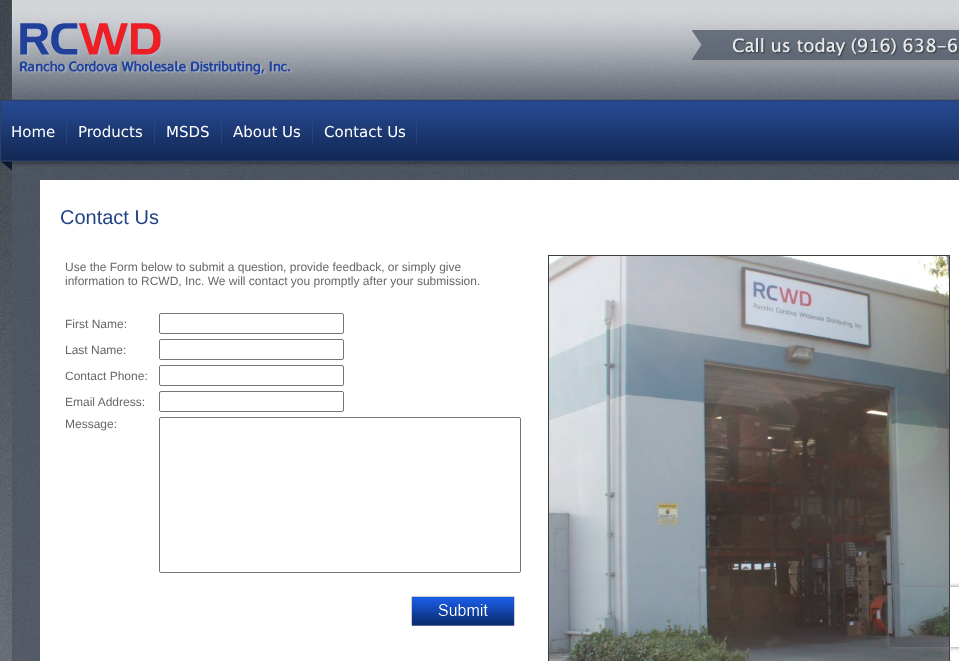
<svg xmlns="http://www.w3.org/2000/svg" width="959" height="661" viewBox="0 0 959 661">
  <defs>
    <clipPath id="clip1"><path d="M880 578H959V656H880ZM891 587H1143C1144 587 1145 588 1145 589V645C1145 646 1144 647 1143 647H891C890 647 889 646 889 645V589C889 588 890 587 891 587Z" clip-rule="evenodd"/></clipPath>
    <filter id="blur1" x="-50%" y="-200%" width="200%" height="500%"><feGaussianBlur stdDeviation="2.5"/></filter>
  </defs>
  <rect width="100%" height="100%" fill="#ffffff"/>
  <image x="0" y="0" width="959" height="661" href="img1.png"/>
  <image x="20" y="23" width="272" height="52" href="img2.png"/>
  <image x="692" y="30" width="267" height="33" href="img3.png"/>
  <rect x="66" y="118" width="1" height="25" fill="#294682"/>
  <text x="11" y="137" font-family="DejaVu Sans" font-size="15" fill="#ffffff">Home</text>
  <rect x="154" y="118" width="1" height="25" fill="#294682"/>
  <text x="78" y="137" font-family="DejaVu Sans" font-size="15" fill="#ffffff">Products</text>
  <rect x="221" y="118" width="1" height="25" fill="#294682"/>
  <text x="166" y="137" font-family="DejaVu Sans" font-size="15" fill="#ffffff">MSDS</text>
  <rect x="312" y="118" width="1" height="25" fill="#294682"/>
  <text x="233" y="137" font-family="DejaVu Sans" font-size="15" fill="#ffffff">About Us</text>
  <rect x="416" y="118" width="1" height="25" fill="#294682"/>
  <text x="324" y="137" font-family="DejaVu Sans" font-size="15" fill="#ffffff">Contact Us</text>
  <rect x="40" y="180" width="919" height="481" fill="#ffffff"/>
  <text x="60" y="224" font-family="Liberation Sans" font-size="20" fill="#234386">Contact Us</text>
  <text x="65" y="271" font-family="Liberation Sans" font-size="12" fill="#676767">Use the Form below to submit a question, provide feedback, or simply give</text>
  <text x="65" y="285" font-family="Liberation Sans" font-size="12" fill="#676767">information to RCWD, Inc. We will contact you promptly after your submission.</text>
  <text x="65" y="328" font-family="Liberation Sans" font-size="12" fill="#676767">First Name:</text>
  <rect x="159.5" y="313.5" width="184" height="20" rx="1.5" fill="none" stroke="#767676"/>
  <text x="65" y="354" font-family="Liberation Sans" font-size="12" fill="#676767">Last Name:</text>
  <rect x="159.5" y="339.5" width="184" height="20" rx="1.5" fill="none" stroke="#767676"/>
  <text x="65" y="380" font-family="Liberation Sans" font-size="12" fill="#676767">Contact Phone:</text>
  <rect x="159.5" y="365.5" width="184" height="20" rx="1.5" fill="none" stroke="#767676"/>
  <text x="65" y="406" font-family="Liberation Sans" font-size="12" fill="#676767">Email Address:</text>
  <rect x="159.5" y="391.5" width="184" height="20" rx="1.5" fill="none" stroke="#767676"/>
  <text x="65" y="428" font-family="Liberation Sans" font-size="12" fill="#676767">Message:</text>
  <rect x="159.5" y="417.5" width="361" height="155" rx="1.5" fill="none" stroke="#767676"/>
  <image x="411" y="596" width="104" height="30" href="img4.png"/>
  <rect x="548.5" y="255.5" width="401" height="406" fill="none" stroke="#383c43"/>
  <image x="549" y="256" width="400" height="405" href="img5.png"/>
  <g clip-path="url(#clip1)">
    <rect x="889" y="587" width="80" height="60" rx="2" fill="#808080" filter="url(#blur1)"/>
  </g>
</svg>
